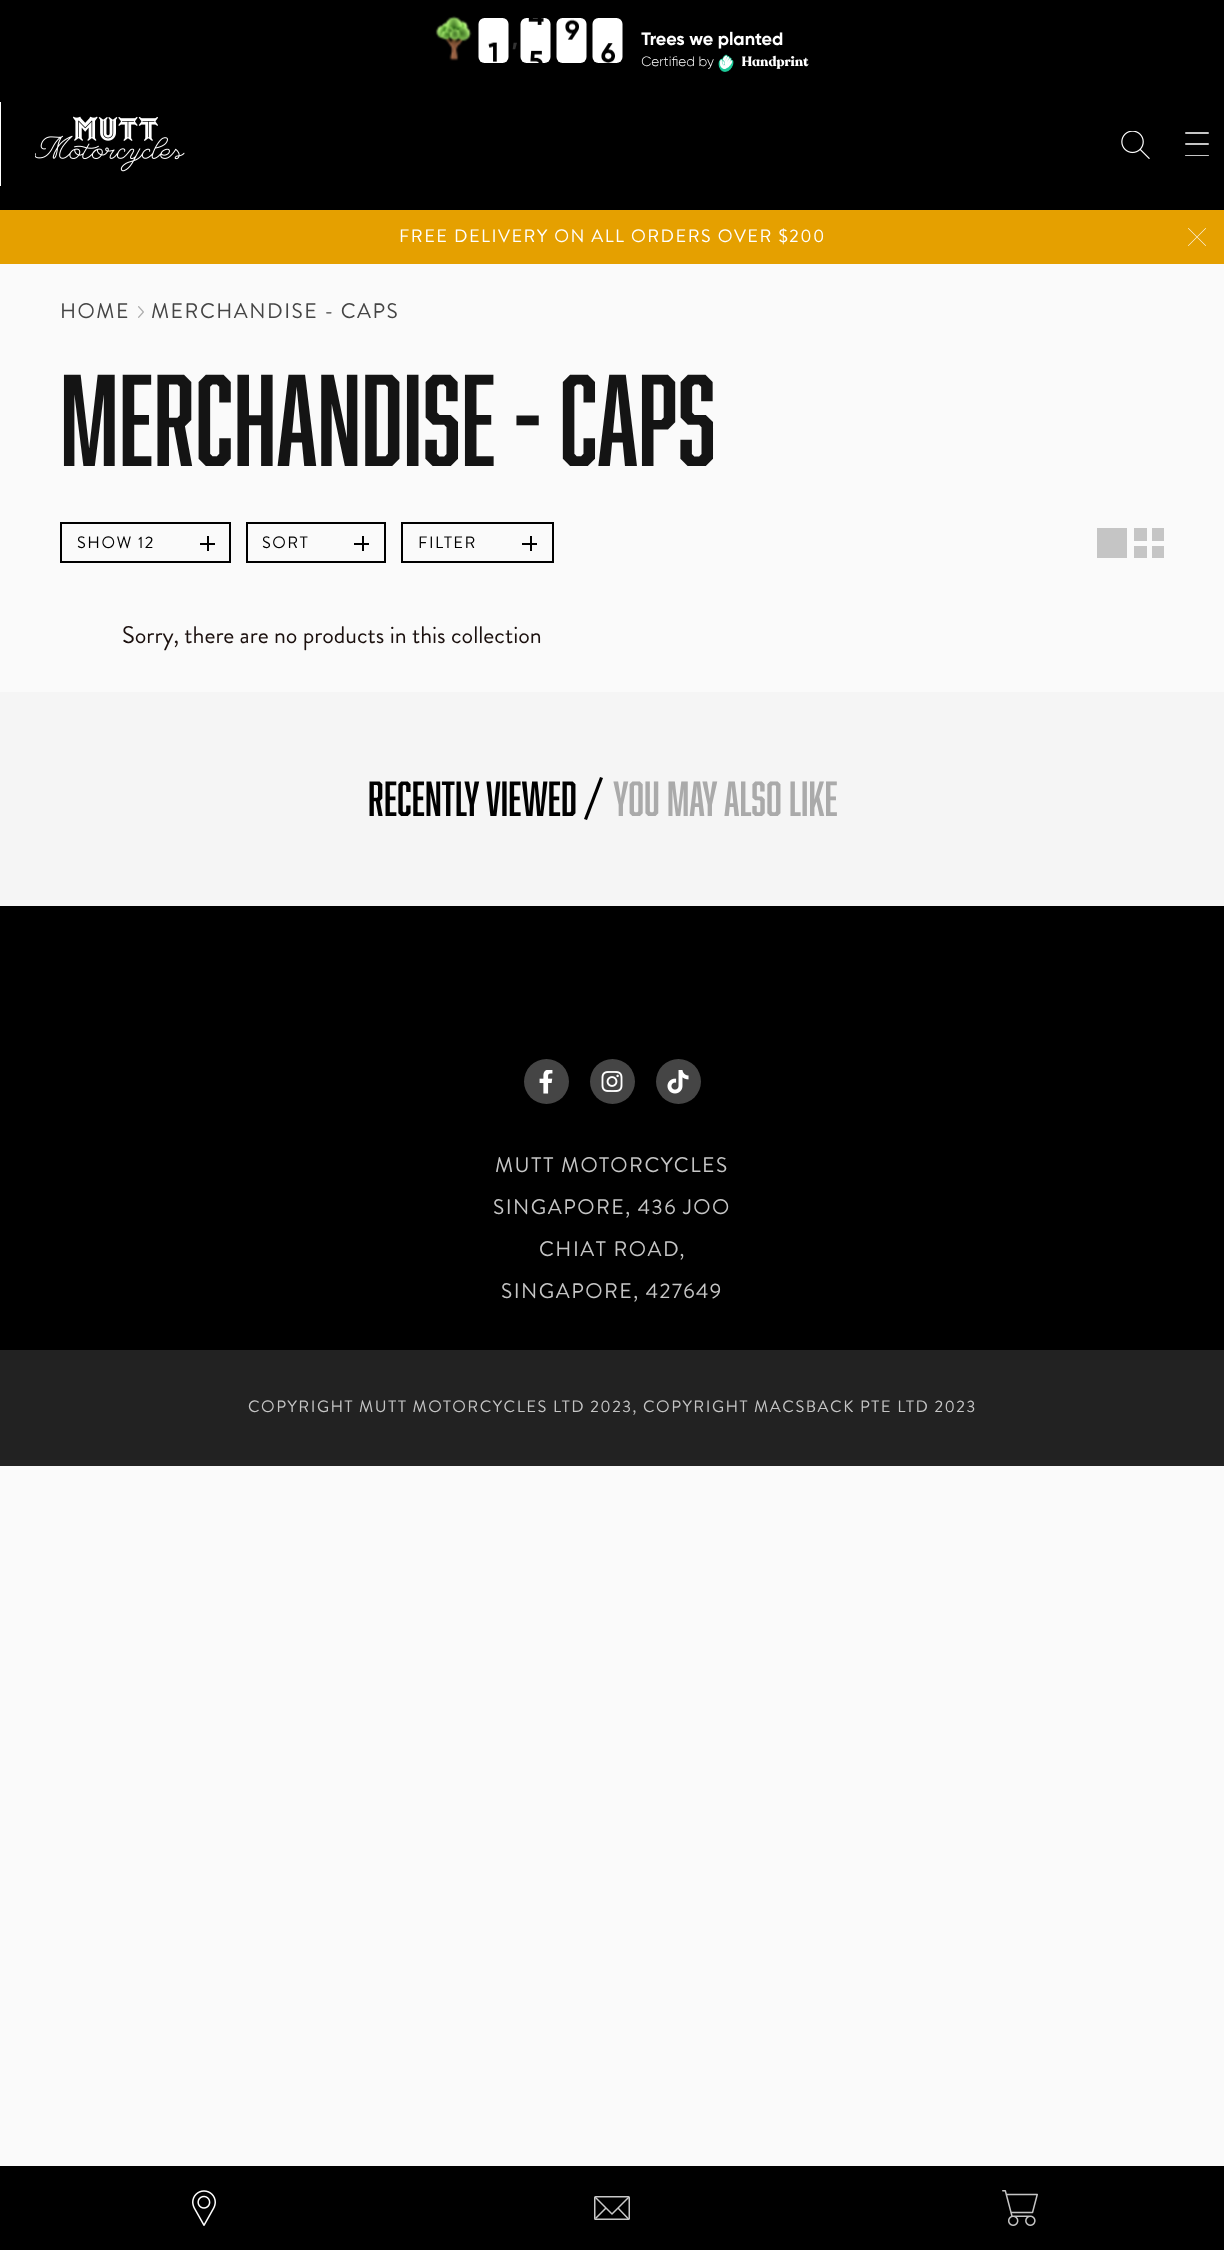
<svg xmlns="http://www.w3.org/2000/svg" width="1224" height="2250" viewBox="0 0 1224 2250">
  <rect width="100%" height="100%" fill="#fafafa"/>
  <image x="0" y="0" width="1224" height="78" href="img1.png"/>
  <rect x="0" y="78" width="1224" height="132" fill="#000000"/>
  <rect x="0" y="102" width="1" height="84" fill="#ffffff"/>
  <image x="35" y="116" width="150" height="56" href="img2.png"/>
  <image x="1121" y="131" width="29" height="28" href="img3.png"/>
  <rect x="1185" y="132" width="24" height="2" rx="1" fill="#c5c5c5"/>
  <rect x="1185" y="143" width="24" height="2" rx="1" fill="#c5c5c5"/>
  <rect x="1185" y="155" width="24" height="1" rx="0.5" fill="#c5c5c5"/>
  <rect x="0" y="210" width="1224" height="54" fill="#e5a000"/>
  <text x="399" y="242" font-family="Brandon Grotesque" font-size="18" letter-spacing="1.5" fill="#ffffff">FREE DELIVERY ON ALL ORDERS OVER $200</text>
  <image x="1188" y="228" width="18" height="18" href="img4.png"/>
  <text x="60" y="318" font-family="Brandon Grotesque" font-size="21" letter-spacing="1.5" fill="#454545">HOME</text>
  <image x="138" y="306" width="6" height="12" href="img5.png"/>
  <text x="151" y="318" font-family="Brandon Grotesque" font-size="21" letter-spacing="1.5" fill="#454545">MERCHANDISE - CAPS</text>
  <text x="60" y="466" font-family="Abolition" font-size="120" fill="#141414">Merchandise - Caps</text>
  <rect x="61" y="523" width="169" height="39" fill="none" stroke="#000000" stroke-width="2"/>
  <text x="77" y="548" font-family="Brandon Grotesque" font-size="16.5" letter-spacing="1.5" fill="#000000">SHOW 12</text>
  <rect x="207" y="536" width="2" height="15" fill="#000000"/>
  <rect x="200" y="543" width="15" height="2" fill="#000000"/>
  <rect x="247" y="523" width="138" height="39" fill="none" stroke="#000000" stroke-width="2"/>
  <text x="262" y="548" font-family="Brandon Grotesque" font-size="16.5" letter-spacing="1.5" fill="#000000">SORT</text>
  <rect x="362" y="536" width="2" height="15" fill="#000000"/>
  <rect x="354" y="543" width="15" height="2" fill="#000000"/>
  <rect x="402" y="523" width="151" height="39" fill="none" stroke="#000000" stroke-width="2"/>
  <text x="418" y="548" font-family="Brandon Grotesque" font-size="16.5" letter-spacing="1.5" fill="#000000">FILTER</text>
  <rect x="530" y="536" width="2" height="15" fill="#000000"/>
  <rect x="522" y="543" width="15" height="2" fill="#000000"/>
  <rect x="1097" y="528" width="30" height="30" fill="#c5c5c5"/>
  <rect x="1134" y="528" width="13" height="13" fill="#c5c5c5"/>
  <rect x="1152" y="528" width="12" height="13" fill="#c5c5c5"/>
  <rect x="1134" y="546" width="13" height="12" fill="#c5c5c5"/>
  <rect x="1152" y="546" width="12" height="12" fill="#c5c5c5"/>
  <text x="122" y="643" font-family="Brandon Grotesque" font-size="24" fill="#1b100e">Sorry, there are no products in this collection</text>
  <rect x="0" y="692" width="1224" height="214" fill="#f5f5f5"/>
  <text x="368" y="816" font-family="Abolition" font-size="45.5" fill="#000000">Recently Viewed</text>
  <path d="M600 777L603 778L587 820L584 819Z" fill="#000000"/>
  <text x="613" y="816" font-family="Abolition" font-size="45.5" fill="#aaaaaa">You may also like</text>
  <rect x="0" y="906" width="1224" height="444" fill="#000000"/>
  <circle cx="546.5" cy="1081.5" r="22.5" fill="#454545"/>
  <image x="539" y="1070" width="14" height="24" href="img6.png"/>
  <circle cx="612.5" cy="1081.5" r="22.5" fill="#454545"/>
  <image x="601" y="1071" width="22" height="21" href="img7.png"/>
  <circle cx="678.5" cy="1081.5" r="22.5" fill="#454545"/>
  <image x="667" y="1070" width="22" height="24" href="img8.png"/>
  <text x="495" y="1172" font-family="Brandon Grotesque" font-size="21" letter-spacing="1.5" fill="#c5c5c5">MUTT MOTORCYCLES</text>
  <text x="493" y="1214" font-family="Brandon Grotesque" font-size="21" letter-spacing="1.5" fill="#c5c5c5">SINGAPORE, 436 JOO</text>
  <text x="539" y="1256" font-family="Brandon Grotesque" font-size="21" letter-spacing="1.5" fill="#c5c5c5">CHIAT ROAD,</text>
  <text x="501" y="1298" font-family="Brandon Grotesque" font-size="21" letter-spacing="1.5" fill="#c5c5c5">SINGAPORE, 427649</text>
  <rect x="0" y="1350" width="1224" height="116" fill="#222222"/>
  <text x="248" y="1412" font-family="Brandon Grotesque" font-size="16.5" letter-spacing="1.5" fill="#c5c5c5">COPYRIGHT MUTT MOTORCYCLES LTD 2023, COPYRIGHT MACSBACK PTE LTD 2023</text>
  <rect x="0" y="2166" width="1224" height="84" fill="#000000"/>
  <image x="192" y="2190" width="24" height="36" href="img9.png"/>
  <rect x="594.75" y="2196.75" width="34.5" height="22.5" rx="0.75" fill="none" stroke="#c9c9c9" stroke-width="1.5"/>
  <path d="M595.5 2197.5L612 2214L628.5 2197.5" fill="none" stroke="#c9c9c9" stroke-width="1.5" stroke-linecap="round" stroke-linejoin="round"/>
  <path d="M595.5 2218.5L606 2208M618 2208L628.5 2219" fill="none" stroke="#c9c9c9" stroke-width="1.5"/>
  <image x="1002" y="2190" width="36" height="36" href="img10.png"/>
</svg>
